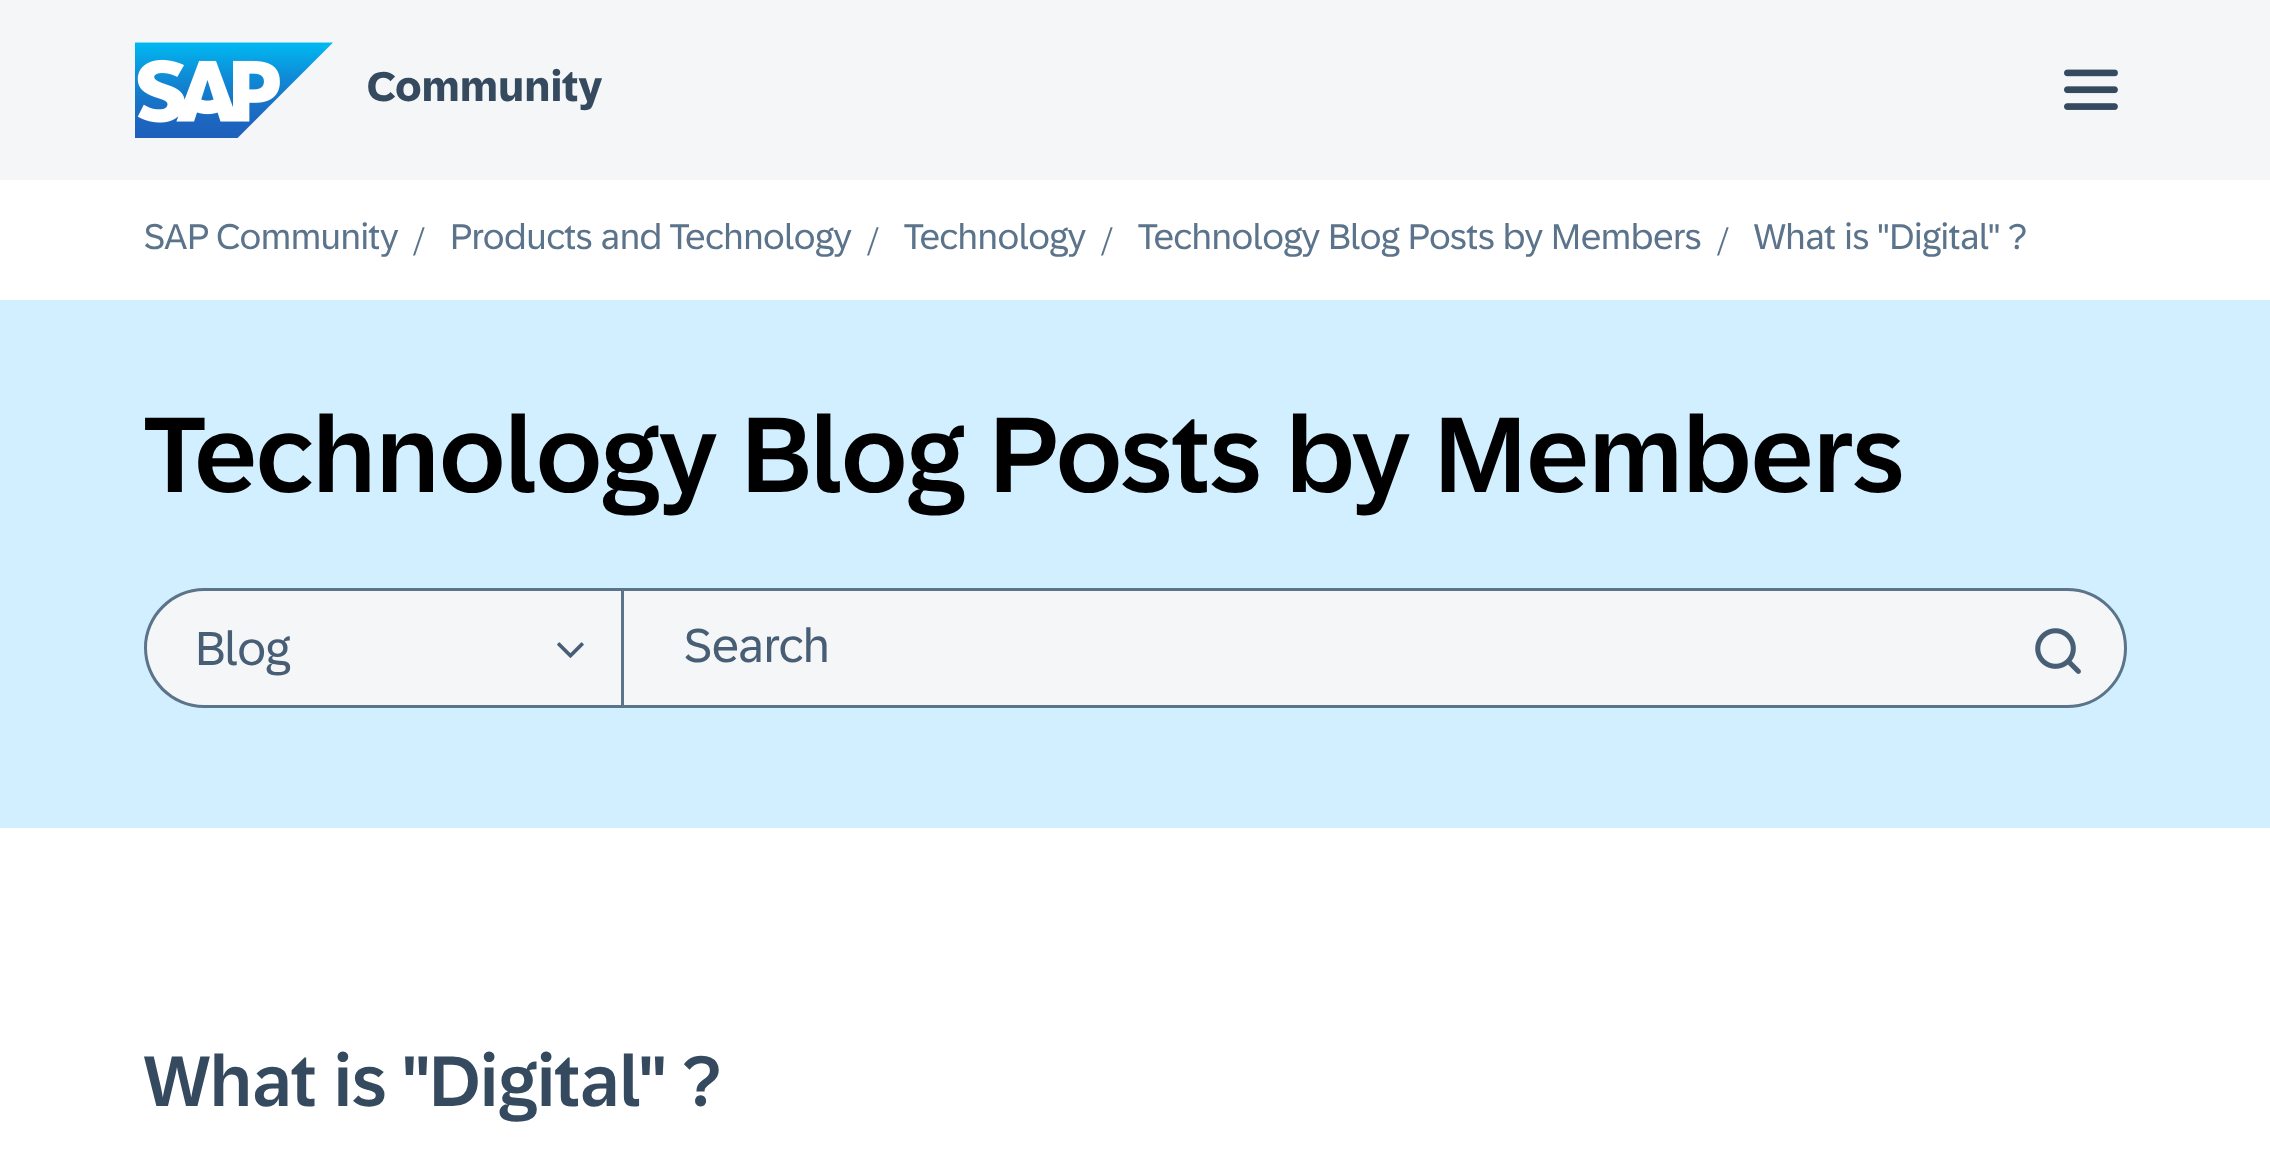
<svg xmlns="http://www.w3.org/2000/svg" width="2270" height="1162" viewBox="0 0 2270 1162">
  <rect width="100%" height="100%" fill="#ffffff"/>
  <rect x="0" y="0" width="2270" height="180" fill="#f5f6f7"/>
  <image x="135" y="42" width="198" height="96" href="img1.png"/>
  <text x="367" y="101" font-family="'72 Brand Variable'" font-size="42" font-weight="bold" fill="#354a5f">Community</text>
  <image x="2064" y="69" width="54" height="41" href="img2.png"/>
  <text x="144" y="249" font-family="'72 Brand Variable'" font-size="36" fill="#5b738b">SAP Community</text>
  <text x="413" y="255" font-family="Liberation Serif" font-size="42" fill="#5b738b">/</text>
  <text x="450" y="249" font-family="'72 Brand Variable'" font-size="36" fill="#5b738b">Products and Technology</text>
  <text x="867" y="255" font-family="Liberation Serif" font-size="42" fill="#5b738b">/</text>
  <text x="904" y="249" font-family="'72 Brand Variable'" font-size="36" fill="#5b738b">Technology</text>
  <text x="1101" y="255" font-family="Liberation Serif" font-size="42" fill="#5b738b">/</text>
  <text x="1138" y="249" font-family="'72 Brand Variable'" font-size="36" fill="#5b738b">Technology Blog Posts by Members</text>
  <text x="1717" y="255" font-family="Liberation Serif" font-size="42" fill="#5b738b">/</text>
  <text x="1754" y="249" font-family="'72 Brand Variable'" font-size="36" fill="#5b738b">What is "Digital" ?</text>
  <rect x="0" y="300" width="2270" height="528" fill="#d1efff"/>
  <text x="144" y="492" font-family="'72 Brand Variable'" font-size="108" font-weight="500" fill="#000000">Technology Blog Posts by Members</text>
  <path d="M204 588H621V708H204C171 708 144 681 144 648C144 615 171 588 204 588Z" fill="#f5f6f7"/>
  <path d="M204 588H621V708H204C171 708 144 681 144 648C144 615 171 588 204 588ZM204 591H621V705H204C173 705 147 679 147 648C147 617 173 591 204 591Z" fill="#5b738b" fill-rule="evenodd"/>
  <text x="195" y="665" font-family="'72 Brand Variable'" font-size="48" fill="#475e75">Blog</text>
  <image x="557" y="642" width="27" height="16" href="img3.png"/>
  <path d="M622.5 589.5H2067C2099.5 589.5 2125.5 615.5 2125.5 648C2125.5 680.5 2099.5 706.5 2067 706.5H622.5Z" fill="#f5f6f7" stroke="#5b738b" stroke-width="3"/>
  <text x="684" y="662" font-family="'72 Brand Variable'" font-size="48" fill="#475e75">Search</text>
  <image x="2035" y="628" width="46" height="46" href="img4.png"/>
  <text x="144" y="1106" font-family="'72 Brand Variable'" font-size="72" font-weight="500" fill="#354a5f">What is "Digital" ?</text>
</svg>
